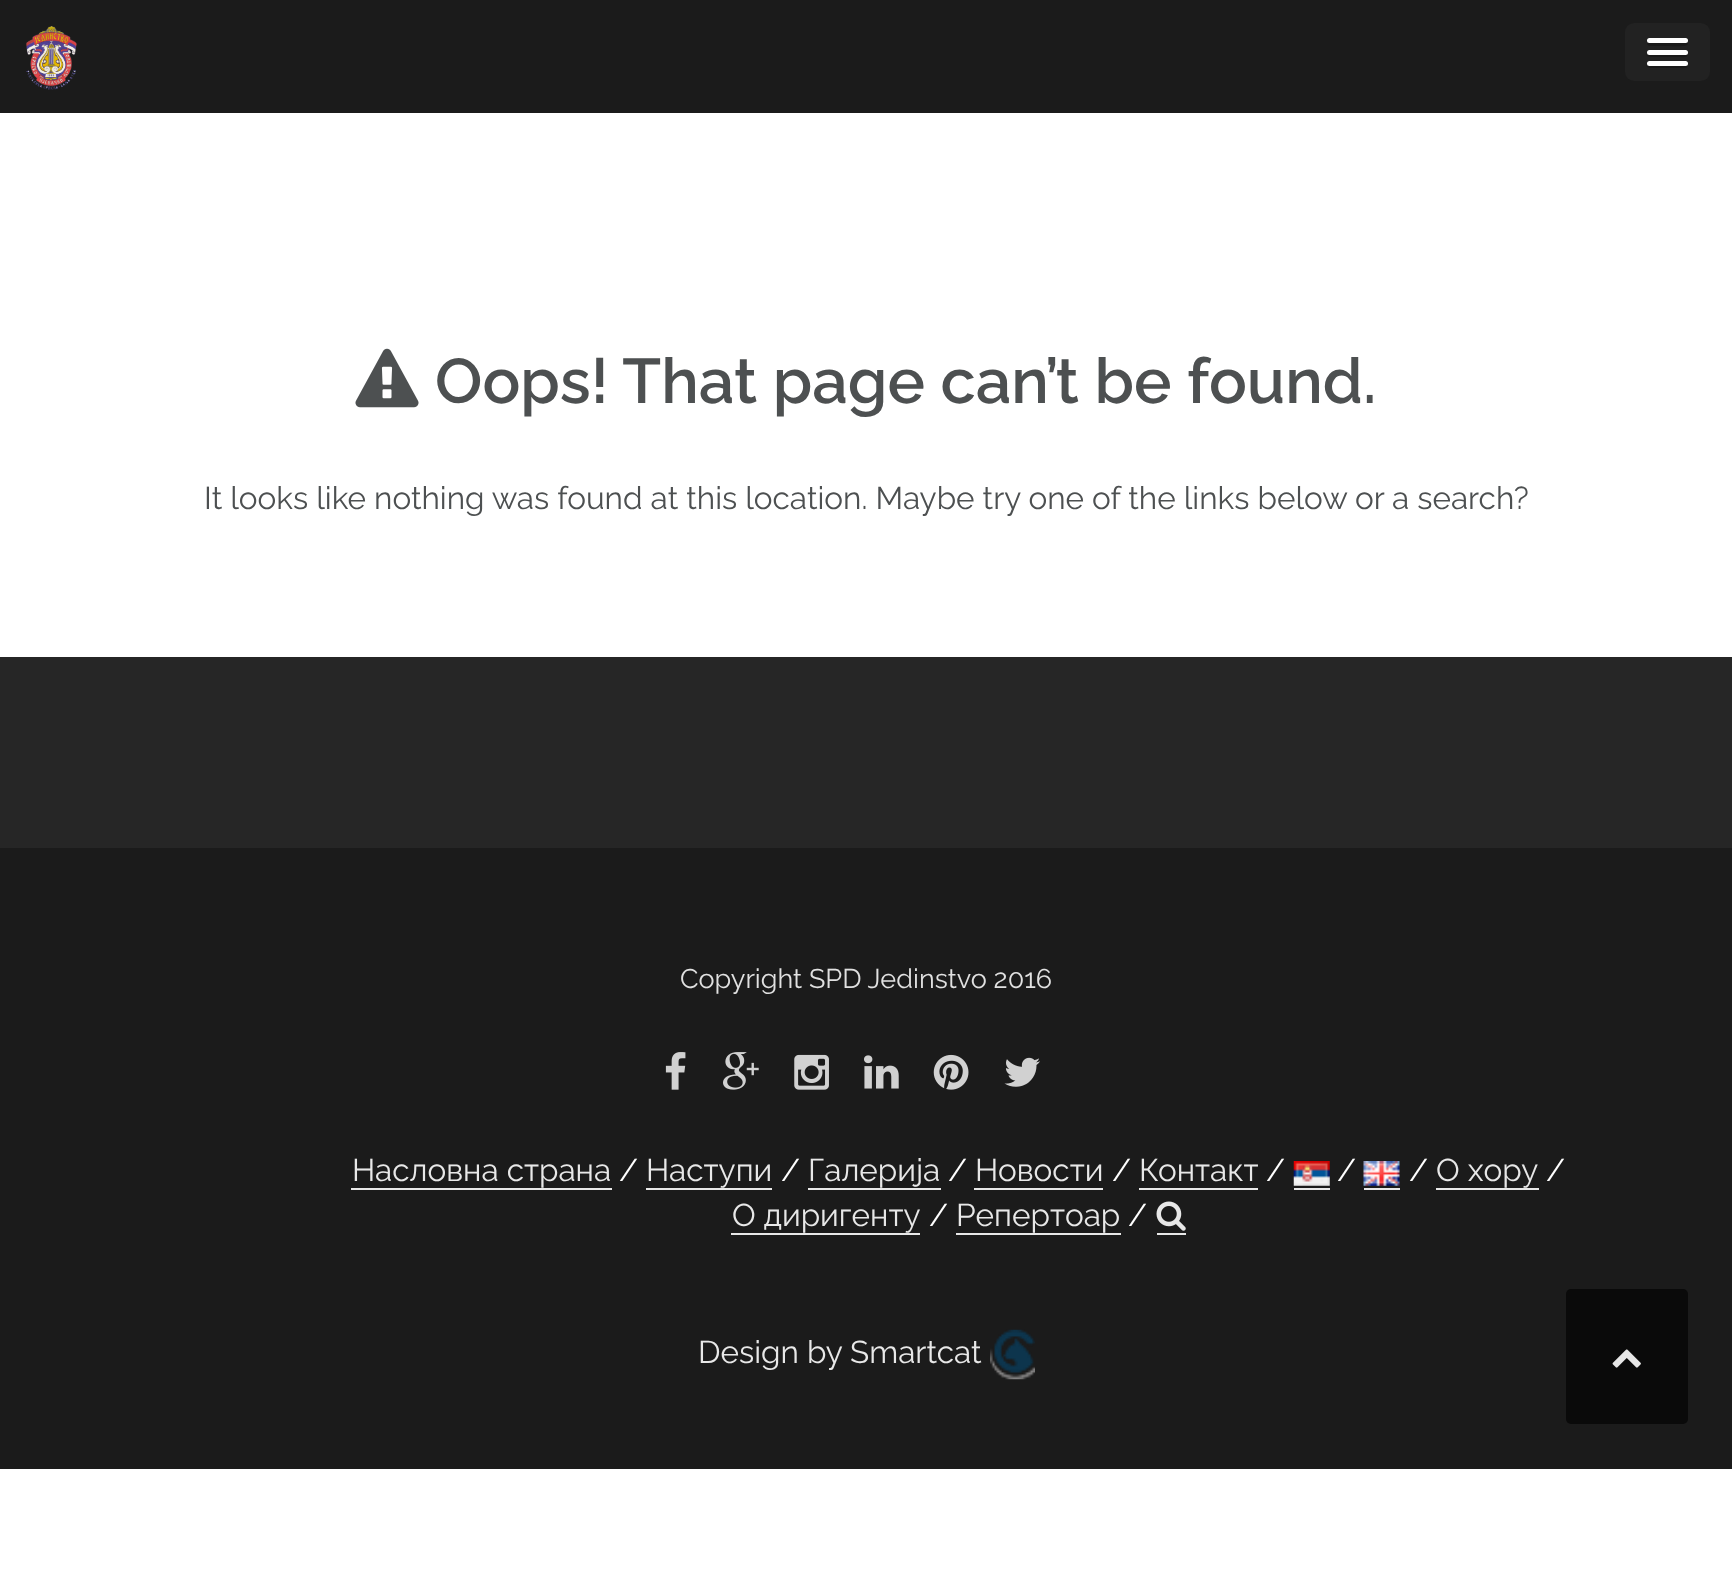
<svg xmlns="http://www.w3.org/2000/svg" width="1732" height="1588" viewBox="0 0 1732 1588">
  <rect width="100%" height="100%" fill="#ffffff"/>
  <rect x="0" y="0" width="1732" height="113" fill="#1b1b1b"/>
  <image x="26" y="26" width="51" height="64" href="img1.png"/>
  <rect x="1625" y="23" width="85" height="58" rx="9" fill="#222222"/>
  <path d="M1648 42C1644 47 1655 46 1656 46H1668C1671 46 1685 47 1687 45C1688 44 1688 43 1687 42L1686 43H1649Z" fill="#1a1a1a"/>
  <rect x="1647" y="38" width="41" height="5" rx="2.5" fill="#ffffff"/>
  <path d="M1647 53C1644 58 1655 57 1656 57H1680C1681 57 1687 58 1688 55L1687 53L1686 54H1649Z" fill="#1a1a1a"/>
  <rect x="1647" y="50" width="41" height="5" rx="2.5" fill="#ffffff"/>
  <path d="M1647 64C1644 69 1655 68 1656 68H1680C1681 68 1687 69 1688 66L1687 64L1686 65H1649Z" fill="#1a1a1a"/>
  <rect x="1647" y="61" width="41" height="5" rx="2.5" fill="#ffffff"/>
  <image x="355" y="348" width="64" height="60" href="img2.png"/>
  <text x="435" y="403" font-family="Raleway" font-size="63" font-weight="600" fill="#4d5051">Oops! That page can’t be found.</text>
  <text x="204" y="509" font-family="Raleway" font-size="31.5" fill="#4d5051">It looks like nothing was found at this location. Maybe try one of the links below or a search?</text>
  <rect x="0" y="657" width="1732" height="191" fill="#262626"/>
  <rect x="0" y="848" width="1732" height="621" fill="#1b1b1b"/>
  <text x="680" y="988" font-family="Raleway" font-size="27" fill="#e1e1e1">Copyright SPD Jedinstvo 2016</text>
  <image x="665" y="1052" width="21" height="38" href="img3.png"/>
  <image x="723" y="1052" width="36" height="38" href="img4.png"/>
  <image x="794" y="1054" width="35" height="36" href="img5.png"/>
  <image x="864" y="1055" width="35" height="34" href="img6.png"/>
  <image x="933" y="1054" width="36" height="36" href="img7.png"/>
  <image x="1004" y="1057" width="36" height="30" href="img8.png"/>
  <text x="352" y="1181" font-family="Raleway" font-size="31.5" fill="#e8e8e8">Насловна страна</text>
  <rect x="351" y="1188" width="261" height="2" fill="#e8e8e8"/>
  <text x="619" y="1181" font-family="Raleway" font-size="31.5" fill="#ffffff">/</text>
  <text x="646" y="1181" font-family="Raleway" font-size="31.5" fill="#e8e8e8">Наступи</text>
  <rect x="646" y="1188" width="126" height="2" fill="#e8e8e8"/>
  <text x="781" y="1181" font-family="Raleway" font-size="31.5" fill="#ffffff">/</text>
  <text x="808" y="1181" font-family="Raleway" font-size="31.5" fill="#e8e8e8">Галерија</text>
  <rect x="808" y="1188" width="133" height="2" fill="#e8e8e8"/>
  <text x="948" y="1181" font-family="Raleway" font-size="31.5" fill="#ffffff">/</text>
  <text x="975" y="1181" font-family="Raleway" font-size="31.5" fill="#e8e8e8">Новости</text>
  <rect x="974" y="1188" width="129" height="2" fill="#e8e8e8"/>
  <text x="1112" y="1181" font-family="Raleway" font-size="31.5" fill="#ffffff">/</text>
  <text x="1139" y="1181" font-family="Raleway" font-size="31.5" fill="#e8e8e8">Контакт</text>
  <rect x="1139" y="1188" width="119" height="2" fill="#e8e8e8"/>
  <text x="1266" y="1181" font-family="Raleway" font-size="31.5" fill="#ffffff">/</text>
  <image x="1293" y="1161" width="37" height="25" href="img9.png"/>
  <text x="1337" y="1181" font-family="Raleway" font-size="31.5" fill="#ffffff">/</text>
  <rect x="1294" y="1188" width="36" height="2" fill="#e8e8e8"/>
  <image x="1363" y="1161" width="37" height="25" href="img10.png"/>
  <text x="1409" y="1181" font-family="Raleway" font-size="31.5" fill="#ffffff">/</text>
  <rect x="1364" y="1188" width="36" height="2" fill="#e8e8e8"/>
  <text x="1436" y="1181" font-family="Raleway" font-size="31.5" fill="#e8e8e8">О хору</text>
  <rect x="1436" y="1188" width="103" height="2" fill="#e8e8e8"/>
  <text x="1546" y="1181" font-family="Raleway" font-size="31.5" fill="#ffffff">/</text>
  <text x="732" y="1226" font-family="Raleway" font-size="31.5" fill="#e8e8e8">О диригенту</text>
  <rect x="731" y="1233" width="189" height="2" fill="#e8e8e8"/>
  <text x="929" y="1226" font-family="Raleway" font-size="31.5" fill="#ffffff">/</text>
  <text x="956" y="1226" font-family="Raleway" font-size="31.5" fill="#e8e8e8">Репертоар</text>
  <rect x="956" y="1233" width="165" height="2" fill="#e8e8e8"/>
  <text x="1128" y="1226" font-family="Raleway" font-size="31.5" fill="#ffffff">/</text>
  <rect x="1157" y="1233" width="29" height="2" fill="#e8e8e8"/>
  <image x="1156" y="1201" width="30" height="30" href="img11.png"/>
  <text x="698" y="1363" font-family="Raleway" font-size="31.5" fill="#e8e8e8">Design by Smartcat</text>
  <image x="990" y="1329" width="45" height="51" href="img12.png"/>
  <rect x="1566" y="1289" width="122" height="135" rx="5" fill="#0a0a0a"/>
  <image x="1612" y="1349" width="29" height="19" href="img13.png"/>
</svg>
